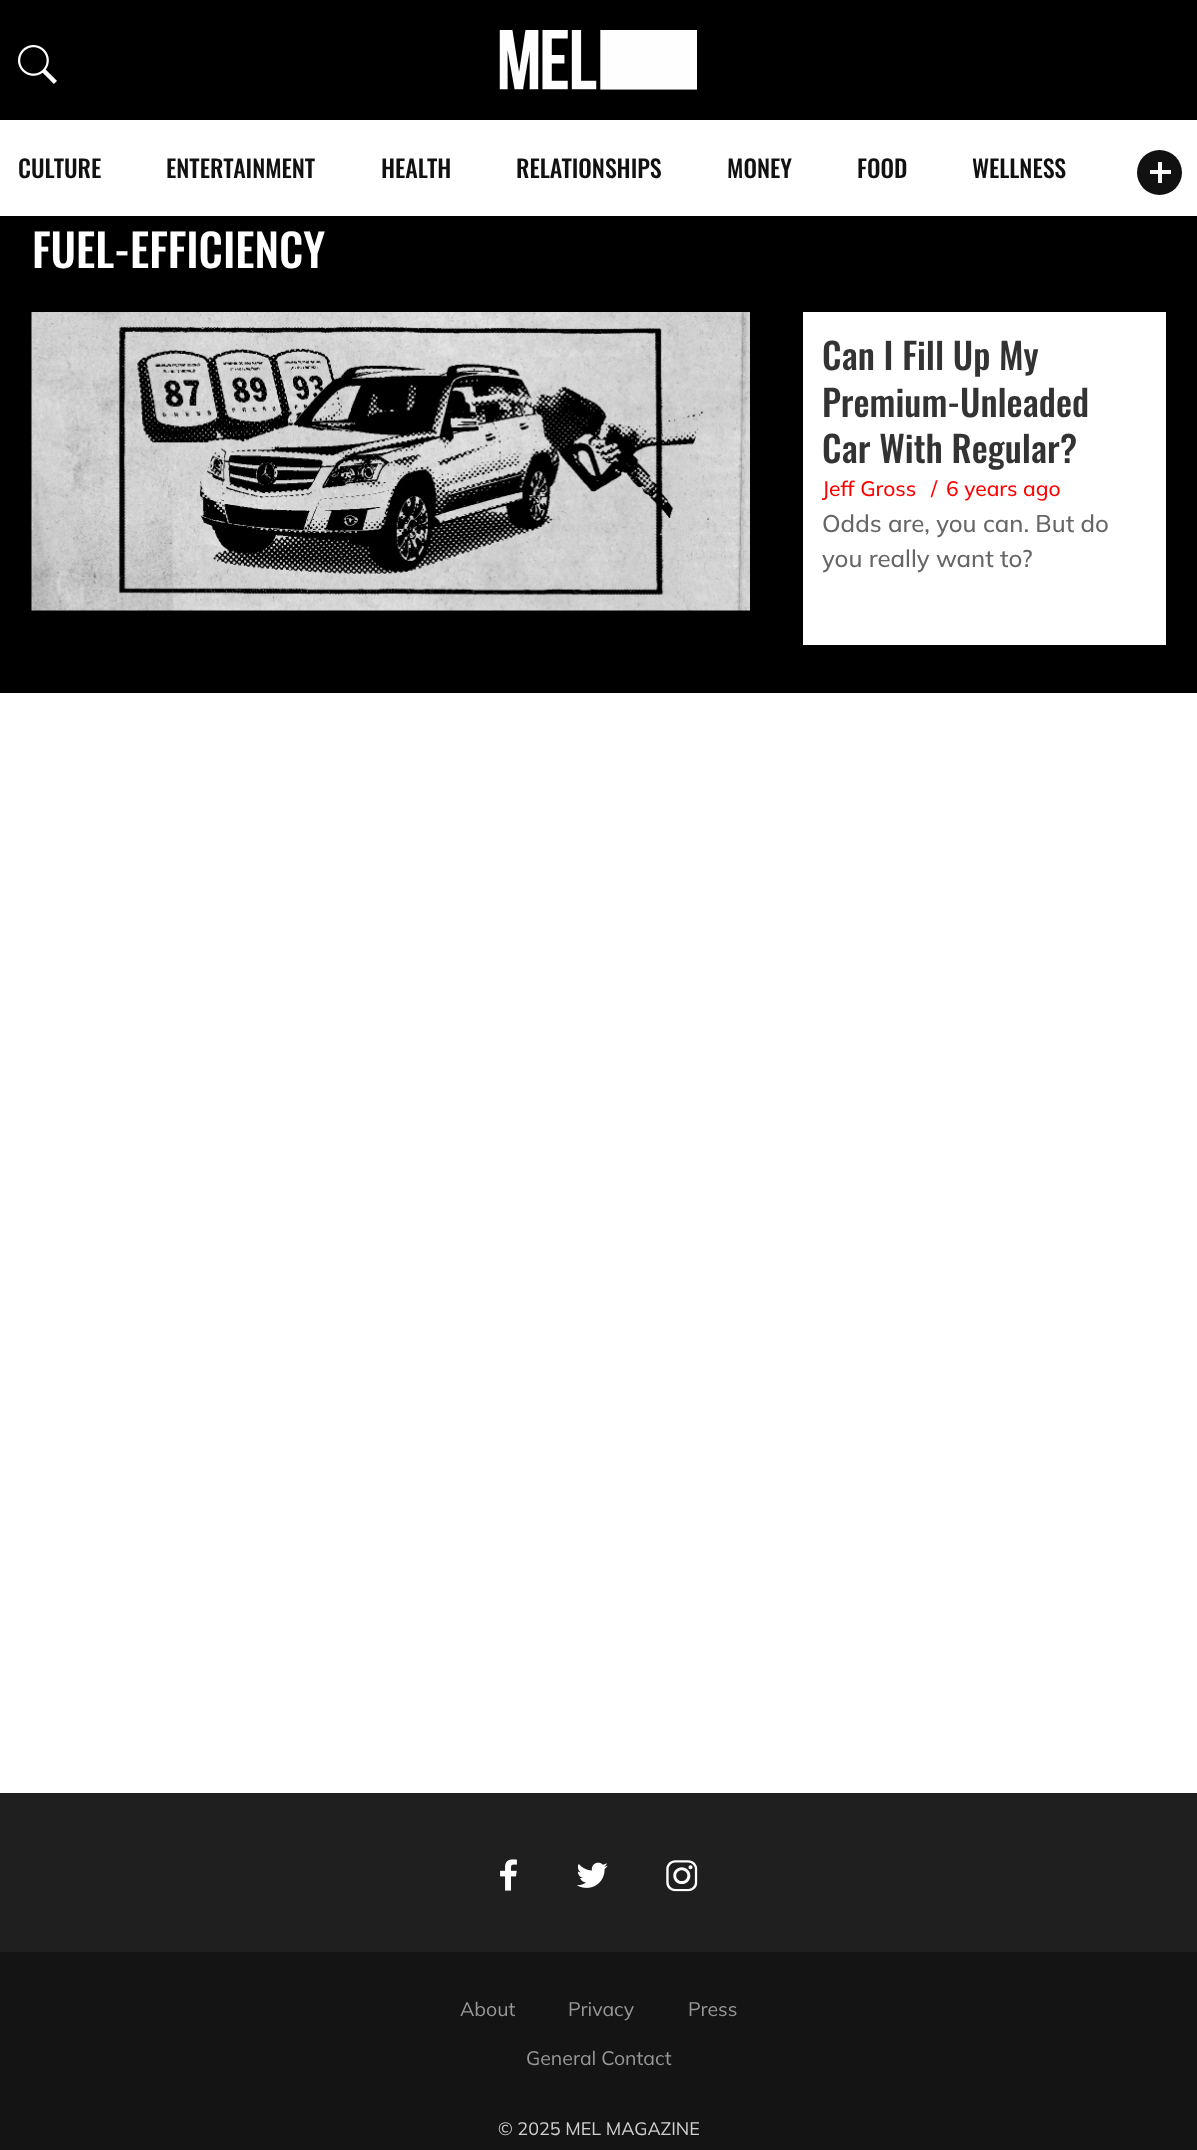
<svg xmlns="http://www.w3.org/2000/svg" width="1197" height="2150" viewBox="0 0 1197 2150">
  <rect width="100%" height="100%" fill="#ffffff"/>
  <rect x="0" y="0" width="1197" height="120" fill="#000000"/>
  <image x="18" y="45" width="39" height="39" href="img1.png"/>
  <image x="499" y="30" width="198" height="60" href="img2.png"/>
  <text x="18" y="178" font-family="Oswald" font-size="24" font-weight="500" fill="#111111">CULTURE</text>
  <text x="166" y="178" font-family="Oswald" font-size="24" font-weight="500" fill="#111111">ENTERTAINMENT</text>
  <text x="381" y="178" font-family="Oswald" font-size="24" font-weight="500" fill="#111111">HEALTH</text>
  <text x="516" y="178" font-family="Oswald" font-size="24" font-weight="500" fill="#111111">RELATIONSHIPS</text>
  <text x="727" y="178" font-family="Oswald" font-size="24" font-weight="500" fill="#111111">MONEY</text>
  <text x="857" y="178" font-family="Oswald" font-size="24" font-weight="500" fill="#111111">FOOD</text>
  <text x="972" y="178" font-family="Oswald" font-size="24" font-weight="500" fill="#111111">WELLNESS</text>
  <circle cx="1159.5" cy="172.5" r="22.5" fill="#111111"/>
  <rect x="1150" y="170" width="21" height="4" fill="#f8f8f8"/>
  <rect x="1158" y="162" width="4" height="21" fill="#f9f9f9"/>
  <rect x="1158" y="170" width="4" height="4" fill="#ffffff"/>
  <rect x="0" y="216" width="1197" height="477" fill="#000000"/>
  <text x="32" y="268" font-family="Oswald" font-size="45" font-weight="500" fill="#ffffff">FUEL-EFFICIENCY</text>
  <image x="31" y="312" width="719" height="299" href="img3.png"/>
  <rect x="803" y="312" width="363" height="333" fill="#ffffff"/>
  <text x="822" y="370" font-family="Oswald" font-size="36" font-weight="500" fill="#333333">Can I Fill Up My</text>
  <text x="822" y="417" font-family="Oswald" font-size="36" font-weight="500" fill="#333333">Premium-Unleaded</text>
  <text x="822" y="463" font-family="Oswald" font-size="36" font-weight="500" fill="#333333">Car With Regular?</text>
  <text x="822" y="496" font-family="Mulish" font-size="21" font-weight="500" fill="#ff0000">Jeff Gross</text>
  <text x="931" y="496" font-family="Mulish" font-size="21" font-weight="500" fill="#ff0000">/</text>
  <text x="946" y="496" font-family="Mulish" font-size="21" font-weight="500" fill="#ff0000">6 years ago</text>
  <text x="822" y="532" font-family="Mulish" font-size="24" font-weight="500" fill="#666666">Odds are, you can. But do</text>
  <text x="822" y="567" font-family="Mulish" font-size="24" font-weight="500" fill="#666666">you really want to?</text>
  <rect x="0" y="1793" width="1197" height="159" fill="#201f1f"/>
  <image x="500" y="1859" width="17" height="32" href="img4.png"/>
  <image x="576" y="1862" width="32" height="26" href="img5.png"/>
  <image x="666" y="1860" width="32" height="32" href="img6.png"/>
  <rect x="0" y="1952" width="1197" height="198" fill="#141414"/>
  <text x="460" y="2016" font-family="Mulish" font-size="19.5" fill="#999999">About</text>
  <text x="568" y="2016" font-family="Mulish" font-size="19.5" fill="#999999">Privacy</text>
  <text x="688" y="2016" font-family="Mulish" font-size="19.5" fill="#999999">Press</text>
  <text x="526" y="2065" font-family="Mulish" font-size="19.5" fill="#999999">General Contact</text>
  <text x="498" y="2135" font-family="Mulish" font-size="18" fill="#d0d0d0">© 2025 MEL MAGAZINE</text>
</svg>
